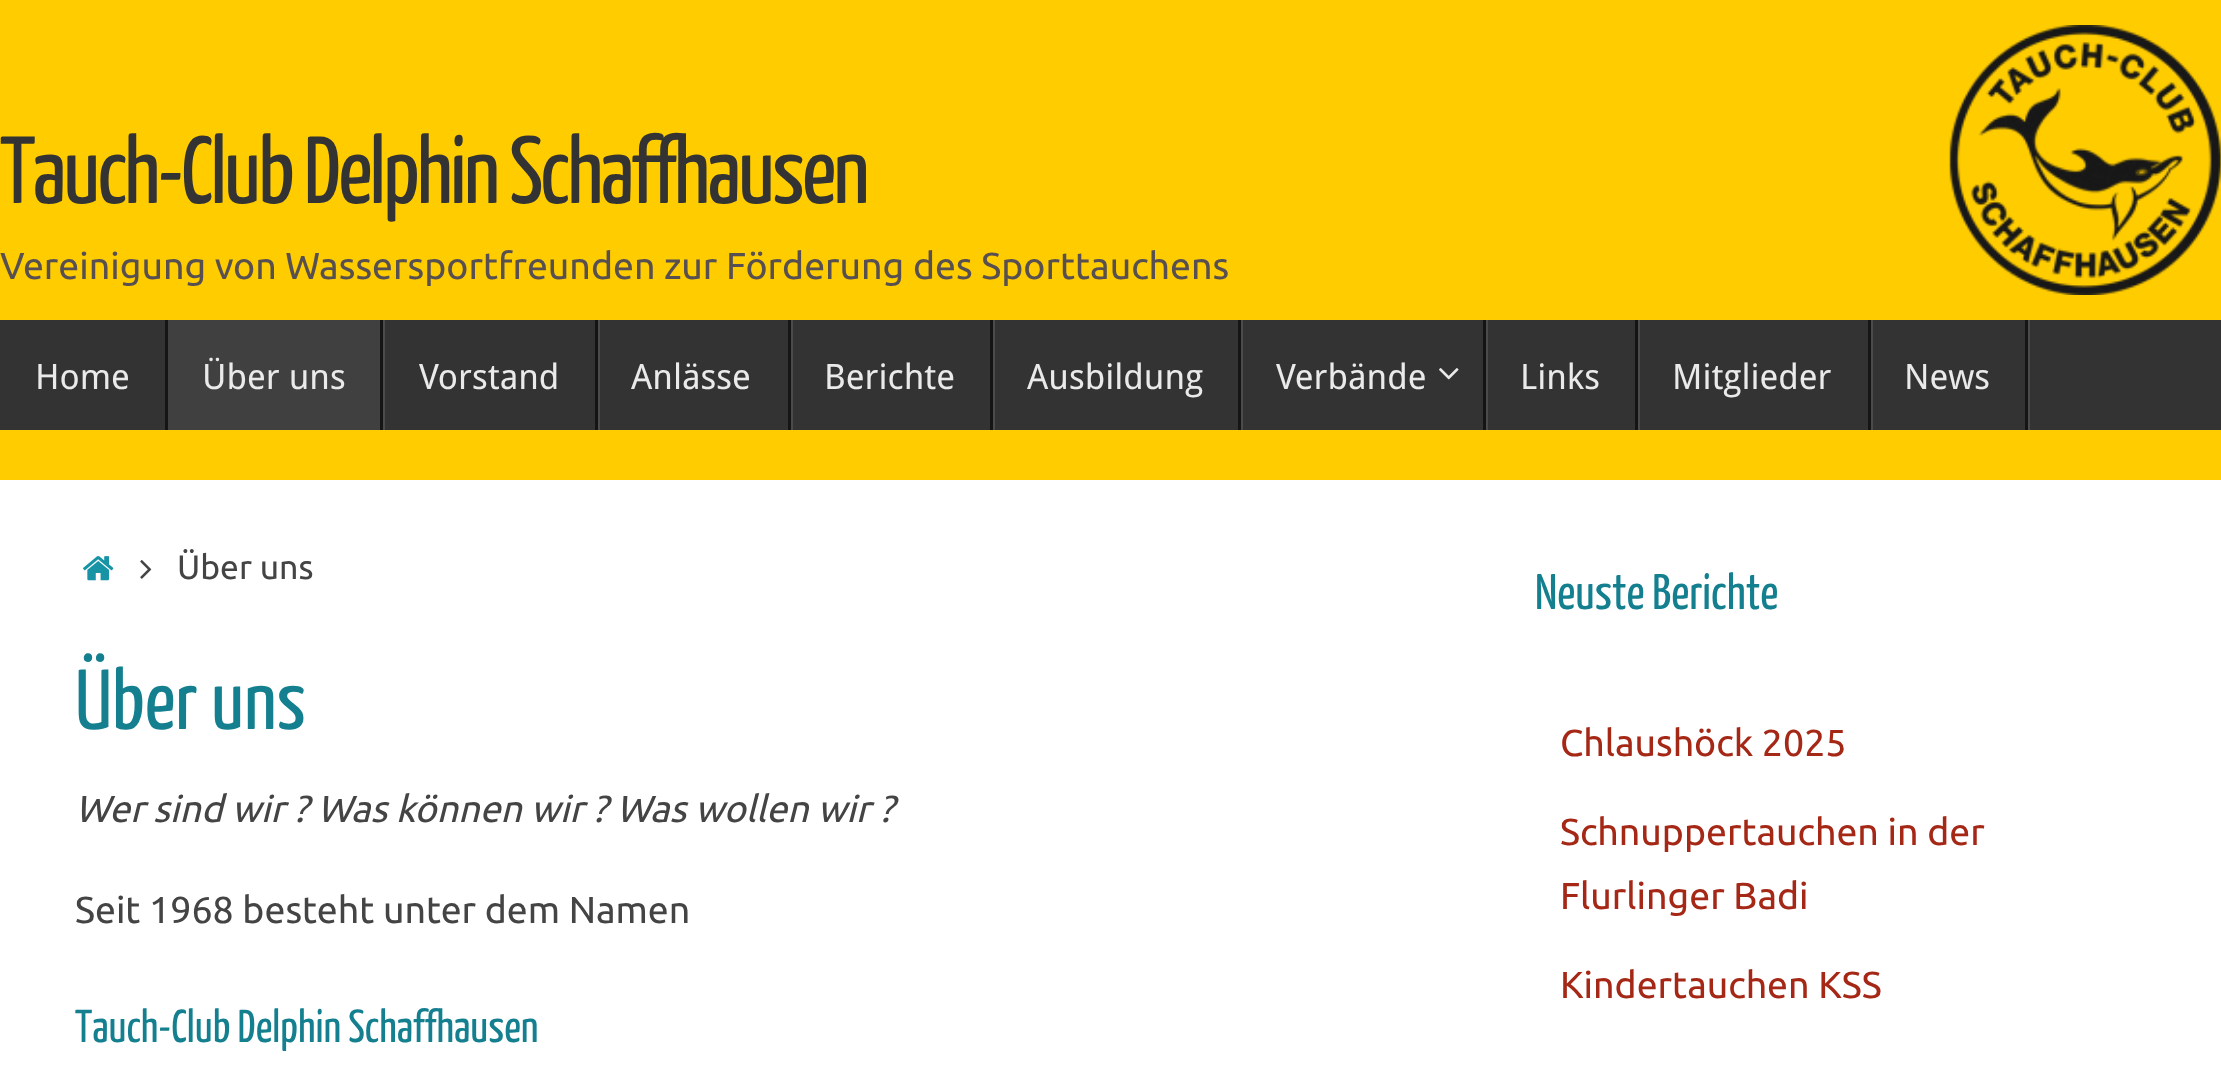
<svg xmlns="http://www.w3.org/2000/svg" width="2221" height="1068" viewBox="0 0 2221 1068">
  <rect width="100%" height="100%" fill="#ffcc00"/>
  <text x="0" y="203" font-family="Yanone Kaffeesatz" font-size="95" letter-spacing="-2.85" fill="#333333">Tauch-Club Delphin Schaffhausen</text>
  <text x="0" y="279" font-family="Ubuntu" font-size="37.5" fill="#585050">Vereinigung von Wassersportfreunden zur Förderung des Sporttauchens</text>
  <image x="1949" y="25" width="272" height="270" href="img1.png"/>
  <rect x="0" y="320" width="2221" height="110" fill="#333333"/>
  <rect x="165" y="320" width="3" height="110" fill="#151515"/>
  <text x="35" y="389" font-family="Droid Sans" font-size="35" fill="#eaeaea">Home</text>
  <rect x="168" y="320" width="212" height="110" fill="#404040"/>
  <rect x="383" y="320" width="2" height="110" fill="#4b4b4b"/>
  <rect x="380" y="320" width="3" height="110" fill="#151515"/>
  <text x="202" y="389" font-family="Droid Sans" font-size="35" fill="#eaeaea">Über uns</text>
  <rect x="598" y="320" width="2" height="110" fill="#4b4b4b"/>
  <rect x="595" y="320" width="3" height="110" fill="#151515"/>
  <text x="419" y="389" font-family="Droid Sans" font-size="35" fill="#eaeaea">Vorstand</text>
  <rect x="791" y="320" width="2" height="110" fill="#4b4b4b"/>
  <rect x="788" y="320" width="3" height="110" fill="#151515"/>
  <text x="631" y="389" font-family="Droid Sans" font-size="35" fill="#eaeaea">Anlässe</text>
  <rect x="993" y="320" width="2" height="110" fill="#4b4b4b"/>
  <rect x="990" y="320" width="3" height="110" fill="#151515"/>
  <text x="824" y="389" font-family="Droid Sans" font-size="35" fill="#eaeaea">Berichte</text>
  <rect x="1241" y="320" width="2" height="110" fill="#4b4b4b"/>
  <rect x="1238" y="320" width="3" height="110" fill="#151515"/>
  <text x="1027" y="389" font-family="Droid Sans" font-size="35" fill="#eaeaea">Ausbildung</text>
  <rect x="1486" y="320" width="2" height="110" fill="#4b4b4b"/>
  <rect x="1483" y="320" width="3" height="110" fill="#151515"/>
  <text x="1276" y="389" font-family="Droid Sans" font-size="35" fill="#eaeaea">Verbände</text>
  <image x="1439" y="368" width="20" height="12" href="img2.png"/>
  <rect x="1638" y="320" width="2" height="110" fill="#4b4b4b"/>
  <rect x="1635" y="320" width="3" height="110" fill="#151515"/>
  <text x="1520" y="389" font-family="Droid Sans" font-size="35" fill="#eaeaea">Links</text>
  <rect x="1871" y="320" width="2" height="110" fill="#4b4b4b"/>
  <rect x="1868" y="320" width="3" height="110" fill="#151515"/>
  <text x="1672" y="389" font-family="Droid Sans" font-size="35" fill="#eaeaea">Mitglieder</text>
  <rect x="2028" y="320" width="2" height="110" fill="#4b4b4b"/>
  <rect x="2025" y="320" width="3" height="110" fill="#151515"/>
  <text x="1904" y="389" font-family="Droid Sans" font-size="35" fill="#eaeaea">News</text>
  <rect x="0" y="480" width="2221" height="588" fill="#ffffff"/>
  <image x="83" y="556" width="31" height="25" href="img3.png"/>
  <image x="140" y="560" width="12" height="19" href="img4.png"/>
  <text x="177" y="579" font-family="Ubuntu" font-size="33.75" fill="#444444">Über uns</text>
  <text x="75" y="729" font-family="Yanone Kaffeesatz" font-size="85" fill="#137f8f">Über uns</text>
  <text x="75" y="822" font-family="Ubuntu" font-size="37.5" font-style="italic" fill="#444444">Wer sind wir ? Was können wir ? Was wollen wir ?</text>
  <text x="75" y="923" font-family="Ubuntu" font-size="37.5" fill="#444444">Seit 1968 besteht unter dem Namen</text>
  <text x="75" y="1042" font-family="Yanone Kaffeesatz" font-size="46.1" fill="#137f8f">Tauch-Club Delphin Schaffhausen</text>
  <text x="1535" y="609" font-family="Yanone Kaffeesatz" font-size="50" fill="#137f8f">Neuste Berichte</text>
  <text x="1560" y="756" font-family="Ubuntu" font-size="37.5" fill="#a52816">Chlaushöck 2025</text>
  <text x="1560" y="845" font-family="Ubuntu" font-size="37.5" fill="#a52816">Schnuppertauchen in der</text>
  <text x="1560" y="909" font-family="Ubuntu" font-size="37.5" fill="#a52816">Flurlinger Badi</text>
  <text x="1560" y="998" font-family="Ubuntu" font-size="37.5" fill="#a52816">Kindertauchen KSS</text>
</svg>
